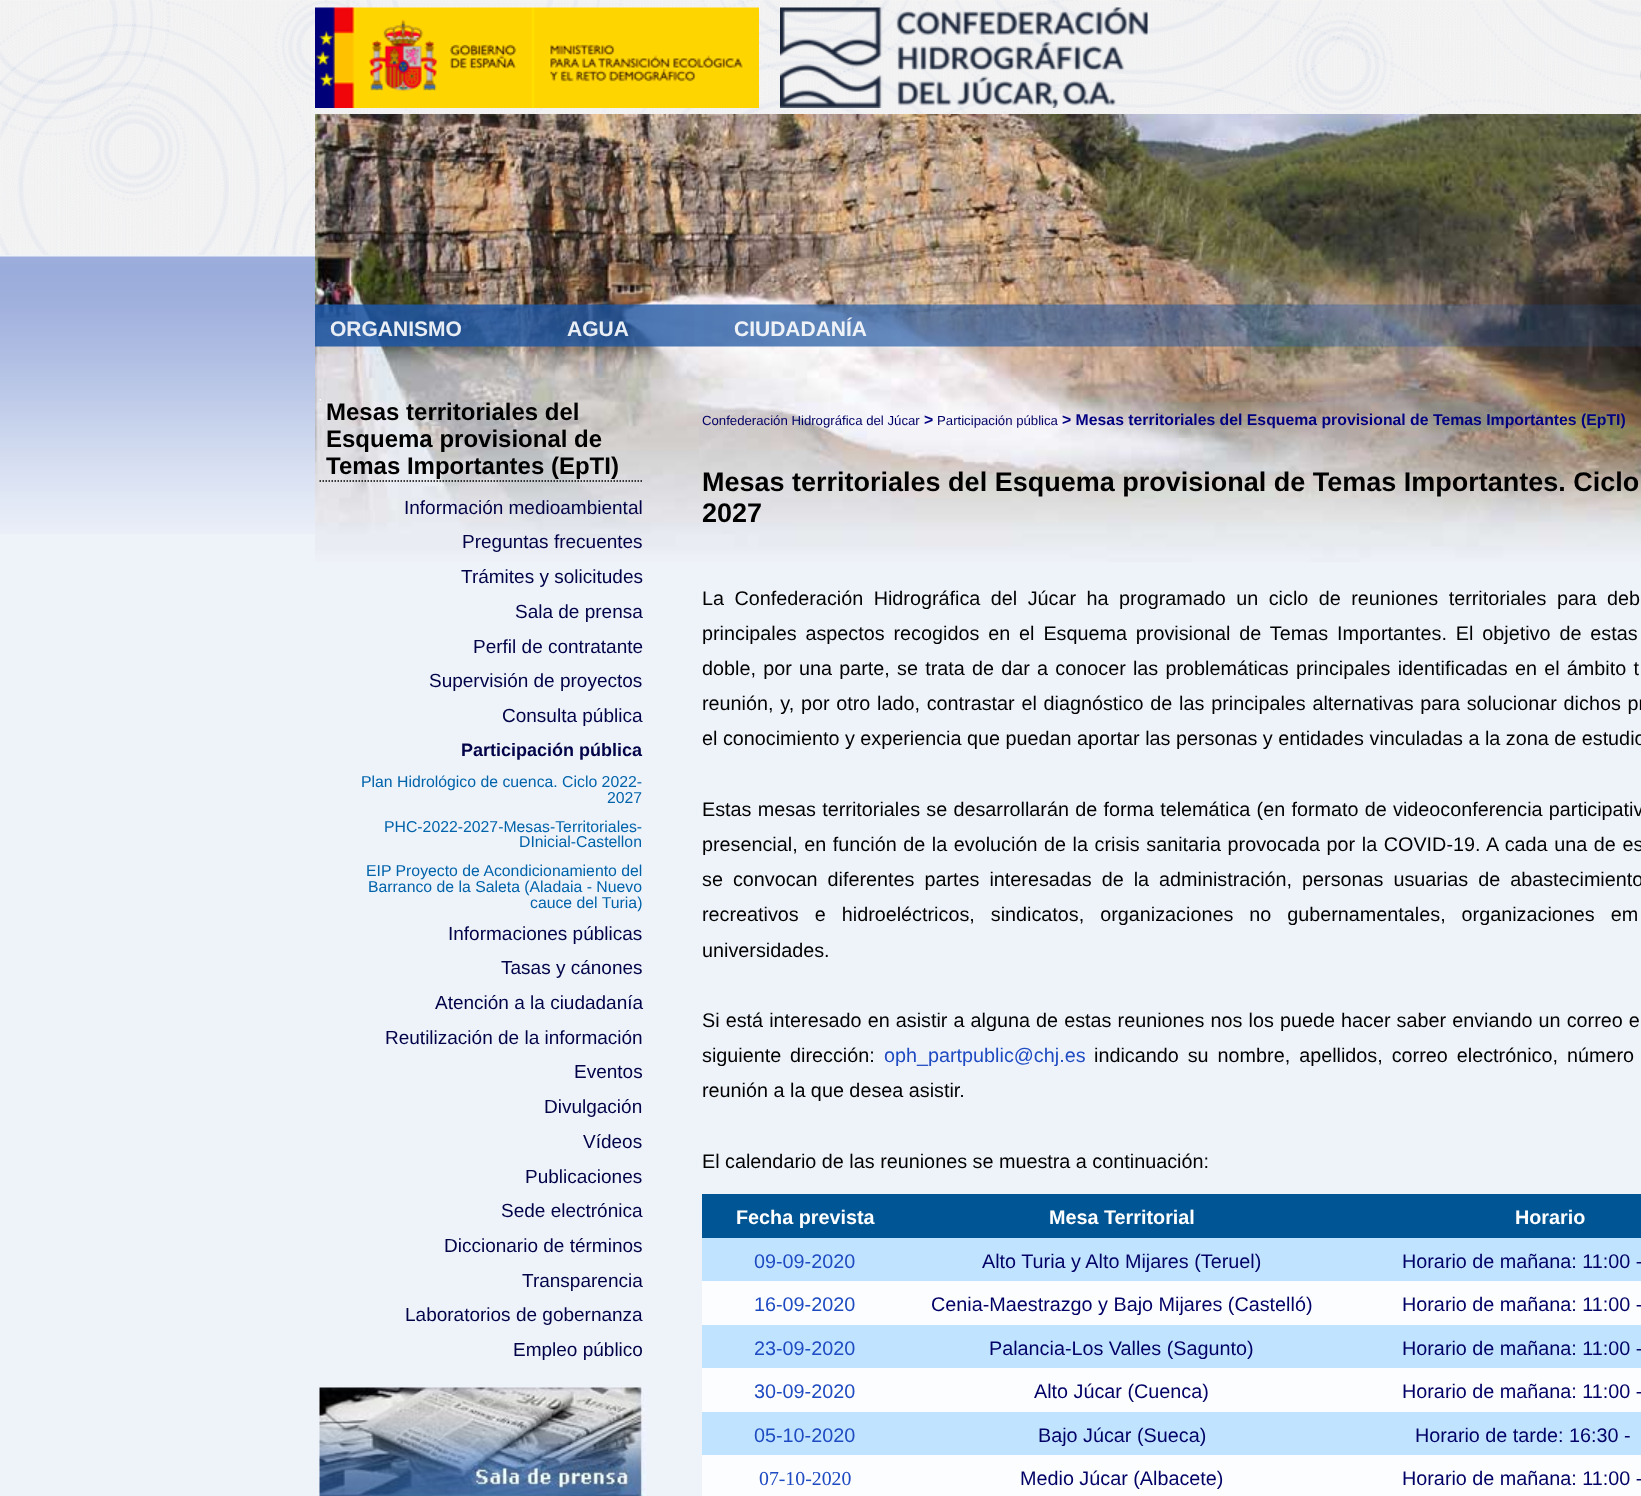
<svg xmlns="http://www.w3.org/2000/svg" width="1641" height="1496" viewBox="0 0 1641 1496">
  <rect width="100%" height="100%" fill="#eef3fa"/>
  <image x="0" y="0" width="1641" height="534" href="img1.png"/>
  <image x="315" y="7" width="444" height="101" href="img2.png"/>
  <image x="780" y="7" width="368" height="101" href="img3.png"/>
  <image x="1640" y="70" width="1" height="10" href="img4.png"/>
  <image x="315" y="114" width="1326" height="448" href="img5.png"/>
  <image x="315" y="304" width="1326" height="43" href="img6.png"/>
  <text x="330" y="336" font-family="Liberation Sans" font-size="21" font-weight="bold" fill="#e9eef5">ORGANISMO</text>
  <text x="567" y="336" font-family="Liberation Sans" font-size="21" font-weight="bold" fill="#e9eef5">AGUA</text>
  <text x="734" y="336" font-family="Liberation Sans" font-size="21" font-weight="bold" fill="#eff3f8">CIUDADANÍA</text>
  <image x="319" y="399" width="2" height="2" href="img7.png"/>
  <path d="M319.5 481H642" fill="none" stroke="#000000" stroke-width="1.5" stroke-dasharray="1.5 1.5"/>
  <text x="326" y="420" font-family="Liberation Sans" font-size="24" font-weight="bold" fill="#000000">Mesas territoriales del</text>
  <text x="326" y="447" font-family="Liberation Sans" font-size="24" font-weight="bold" fill="#000000">Esquema provisional de</text>
  <text x="326" y="474" font-family="Liberation Sans" font-size="24" font-weight="bold" fill="#000000">Temas Importantes (EpTI)</text>
  <text x="404" y="514" font-family="Liberation Sans" font-size="19" fill="#010247">Información medioambiental</text>
  <text x="462" y="548" font-family="Liberation Sans" font-size="19" fill="#010247">Preguntas frecuentes</text>
  <text x="461" y="583" font-family="Liberation Sans" font-size="19" fill="#010247">Trámites y solicitudes</text>
  <text x="515" y="618" font-family="Liberation Sans" font-size="19" fill="#010247">Sala de prensa</text>
  <text x="473" y="653" font-family="Liberation Sans" font-size="19" fill="#010247">Perfil de contratante</text>
  <text x="429" y="687" font-family="Liberation Sans" font-size="19" fill="#010247">Supervisión de proyectos</text>
  <text x="502" y="722" font-family="Liberation Sans" font-size="19" fill="#010247">Consulta pública</text>
  <text x="461" y="756" font-family="Liberation Sans" font-size="18" font-weight="bold" fill="#010247">Participación pública</text>
  <text x="361" y="787" font-family="Liberation Sans" font-size="15.8" fill="#0063aa">Plan Hidrológico de cuenca. Ciclo 2022-</text>
  <text x="607" y="803" font-family="Liberation Sans" font-size="15.8" fill="#0063aa">2027</text>
  <text x="384" y="832" font-family="Liberation Sans" font-size="15.8" fill="#0063aa">PHC-2022-2027-Mesas-Territoriales-</text>
  <text x="519" y="847" font-family="Liberation Sans" font-size="15.8" fill="#0063aa">DInicial-Castellon</text>
  <text x="366" y="876" font-family="Liberation Sans" font-size="15.8" fill="#0063aa">EIP Proyecto de Acondicionamiento del</text>
  <text x="368" y="892" font-family="Liberation Sans" font-size="15.8" fill="#0063aa">Barranco de la Saleta (Aladaia - Nuevo</text>
  <text x="530" y="908" font-family="Liberation Sans" font-size="15.8" fill="#0063aa">cauce del Turia)</text>
  <text x="448" y="940" font-family="Liberation Sans" font-size="19" fill="#010247">Informaciones públicas</text>
  <text x="501" y="974" font-family="Liberation Sans" font-size="19" fill="#010247">Tasas y cánones</text>
  <text x="435" y="1009" font-family="Liberation Sans" font-size="19" fill="#010247">Atención a la ciudadanía</text>
  <text x="385" y="1044" font-family="Liberation Sans" font-size="19" fill="#010247">Reutilización de la información</text>
  <text x="574" y="1078" font-family="Liberation Sans" font-size="19" fill="#010247">Eventos</text>
  <text x="544" y="1113" font-family="Liberation Sans" font-size="19" fill="#010247">Divulgación</text>
  <text x="583" y="1148" font-family="Liberation Sans" font-size="19" fill="#010247">Vídeos</text>
  <text x="525" y="1183" font-family="Liberation Sans" font-size="19" fill="#010247">Publicaciones</text>
  <text x="501" y="1217" font-family="Liberation Sans" font-size="19" fill="#010247">Sede electrónica</text>
  <text x="444" y="1252" font-family="Liberation Sans" font-size="19" fill="#010247">Diccionario de términos</text>
  <text x="522" y="1287" font-family="Liberation Sans" font-size="19" fill="#010247">Transparencia</text>
  <text x="405" y="1321" font-family="Liberation Sans" font-size="19" fill="#010247">Laboratorios de gobernanza</text>
  <text x="513" y="1356" font-family="Liberation Sans" font-size="19" fill="#010247">Empleo público</text>
  <image x="319" y="1387" width="2" height="2" href="img8.png"/>
  <image x="319" y="1387" width="328" height="109" href="img9.png"/>
  <text x="702" y="425" font-family="Liberation Sans" font-size="13.2" fill="#000066">Confederación Hidrográfica del Júcar</text>
  <text x="924" y="425" font-family="Liberation Sans" font-size="15.8" font-weight="bold" fill="#000080">&gt;</text>
  <text x="937" y="425" font-family="Liberation Sans" font-size="13.2" fill="#000066">Participación pública</text>
  <text x="1062" y="425" font-family="Liberation Sans" font-size="15.8" font-weight="bold" fill="#000080">&gt; Mesas territoriales del Esquema provisional de Temas Importantes (EpTI)</text>
  <text x="702" y="491" font-family="Liberation Sans" font-size="27" font-weight="bold" fill="#000000">Mesas territoriales del Esquema provisional de Temas Importantes. Ciclo</text>
  <text x="702" y="522" font-family="Liberation Sans" font-size="27" font-weight="bold" fill="#000000">2027</text>
  <text x="702" y="605" word-spacing="5" font-family="Liberation Sans" font-size="19.8" fill="#000000">La Confederación Hidrográfica del Júcar ha programado un ciclo de reuniones territoriales para deb</text>
  <text x="702" y="640" word-spacing="3.4" font-family="Liberation Sans" font-size="19.8" fill="#000000">principales aspectos recogidos en el Esquema provisional de Temas Importantes. El objetivo de estas</text>
  <text x="702" y="675" word-spacing="1.75" font-family="Liberation Sans" font-size="19.8" fill="#000000">doble, por una parte, se trata de dar a conocer las problemáticas principales identificadas en el ámbito t</text>
  <text x="702" y="710" word-spacing="1.25" font-family="Liberation Sans" font-size="19.8" fill="#000000">reunión, y, por otro lado, contrastar el diagnóstico de las principales alternativas para solucionar dichos pr</text>
  <text x="702" y="745" font-family="Liberation Sans" font-size="19.8" fill="#000000">el conocimiento y experiencia que puedan aportar las personas y entidades vinculadas a la zona de estudio</text>
  <text x="702" y="816" word-spacing="0.75" font-family="Liberation Sans" font-size="19.8" fill="#000000">Estas mesas territoriales se desarrollarán de forma telemática (en formato de videoconferencia participativ</text>
  <text x="702" y="851" word-spacing="1.1" font-family="Liberation Sans" font-size="19.8" fill="#000000">presencial, en función de la evolución de la crisis sanitaria provocada por la COVID-19. A cada una de es</text>
  <text x="702" y="886" word-spacing="4.5" font-family="Liberation Sans" font-size="19.8" fill="#000000">se convocan diferentes partes interesadas de la administración, personas usuarias de abastecimiento</text>
  <text x="702" y="921" word-spacing="10.5" font-family="Liberation Sans" font-size="19.8" fill="#000000">recreativos e hidroeléctricos, sindicatos, organizaciones no gubernamentales, organizaciones em</text>
  <text x="702" y="957" font-family="Liberation Sans" font-size="19.8" fill="#000000">universidades.</text>
  <text x="702" y="1027" word-spacing="0.6" font-family="Liberation Sans" font-size="19.8" fill="#000000">Si está interesado en asistir a alguna de estas reuniones nos los puede hacer saber enviando un correo e</text>
  <text x="702" y="1062" word-spacing="3.4" font-family="Liberation Sans" font-size="19.8" fill="#000000">siguiente dirección:</text>
  <text x="884" y="1062" font-family="Liberation Sans" font-size="19.8" fill="#1f4bc2">oph_partpublic@chj.es</text>
  <text x="1094" y="1062" word-spacing="3.5" font-family="Liberation Sans" font-size="19.8" fill="#000000">indicando su nombre, apellidos, correo electrónico, número</text>
  <text x="702" y="1097" font-family="Liberation Sans" font-size="19.8" fill="#000000">reunión a la que desea asistir.</text>
  <text x="702" y="1168" font-family="Liberation Sans" font-size="19.8" fill="#000000">El calendario de las reuniones se muestra a continuación:</text>
  <rect x="702" y="1194" width="939" height="44" fill="#005594"/>
  <text x="736" y="1224" font-family="Liberation Sans" font-size="19.8" font-weight="bold" fill="#ffffff">Fecha prevista</text>
  <text x="1049" y="1224" font-family="Liberation Sans" font-size="19.8" font-weight="bold" fill="#ffffff">Mesa Territorial</text>
  <text x="1515" y="1224" font-family="Liberation Sans" font-size="19.8" font-weight="bold" fill="#ffffff">Horario</text>
  <rect x="702" y="1238" width="939" height="43" fill="#c0e4ff"/>
  <text x="754" y="1268" font-family="Liberation Sans" font-size="19.8" fill="#1f4bc2">09-09-2020</text>
  <text x="982" y="1268" font-family="Liberation Sans" font-size="19.8" fill="#000066">Alto Turia y Alto Mijares (Teruel)</text>
  <text x="1402" y="1268" font-family="Liberation Sans" font-size="19.8" fill="#000066">Horario de mañana: 11:00 -</text>
  <rect x="702" y="1281" width="939" height="44" fill="#fcfdfe"/>
  <text x="754" y="1311" font-family="Liberation Sans" font-size="19.8" fill="#1f4bc2">16-09-2020</text>
  <text x="931" y="1311" font-family="Liberation Sans" font-size="19.8" fill="#000066">Cenia-Maestrazgo y Bajo Mijares (Castelló)</text>
  <text x="1402" y="1311" font-family="Liberation Sans" font-size="19.8" fill="#000066">Horario de mañana: 11:00 -</text>
  <rect x="702" y="1325" width="939" height="43" fill="#c0e4ff"/>
  <text x="754" y="1355" font-family="Liberation Sans" font-size="19.8" fill="#1f4bc2">23-09-2020</text>
  <text x="989" y="1355" font-family="Liberation Sans" font-size="19.8" fill="#000066">Palancia-Los Valles (Sagunto)</text>
  <text x="1402" y="1355" font-family="Liberation Sans" font-size="19.8" fill="#000066">Horario de mañana: 11:00 -</text>
  <rect x="702" y="1368" width="939" height="44" fill="#fcfdfe"/>
  <text x="754" y="1398" font-family="Liberation Sans" font-size="19.8" fill="#1f4bc2">30-09-2020</text>
  <text x="1034" y="1398" font-family="Liberation Sans" font-size="19.8" fill="#000066">Alto Júcar (Cuenca)</text>
  <text x="1402" y="1398" font-family="Liberation Sans" font-size="19.8" fill="#000066">Horario de mañana: 11:00 -</text>
  <rect x="702" y="1412" width="939" height="43" fill="#c0e4ff"/>
  <text x="754" y="1442" font-family="Liberation Sans" font-size="19.8" fill="#1f4bc2">05-10-2020</text>
  <text x="1038" y="1442" font-family="Liberation Sans" font-size="19.8" fill="#000066">Bajo Júcar (Sueca)</text>
  <text x="1415" y="1442" font-family="Liberation Sans" font-size="19.8" fill="#000066">Horario de tarde: 16:30 -</text>
  <rect x="702" y="1455" width="939" height="41" fill="#fcfdfe"/>
  <text x="759" y="1485" font-family="Liberation Serif" font-size="19.8" fill="#1f4bc2">07-10-2020</text>
  <text x="1020" y="1485" font-family="Liberation Sans" font-size="19.8" fill="#000066">Medio Júcar (Albacete)</text>
  <text x="1402" y="1485" font-family="Liberation Sans" font-size="19.8" fill="#000066">Horario de mañana: 11:00 -</text>
</svg>
